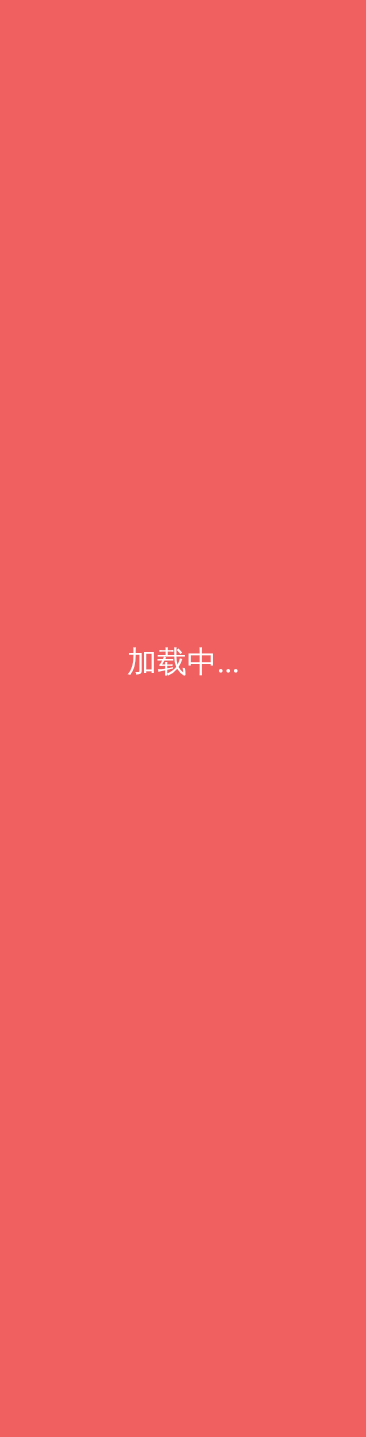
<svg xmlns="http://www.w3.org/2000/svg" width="366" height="1437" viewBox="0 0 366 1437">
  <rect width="100%" height="100%" fill="#f06060"/>
  <text x="127" y="672" font-family="WenQuanYi Zen Hei" font-size="30" font-weight="500" fill="#ffffff">加载中</text>
  <text x="217" y="672" font-family="Liberation Serif" font-size="30" fill="#ffffff">...</text>
</svg>
